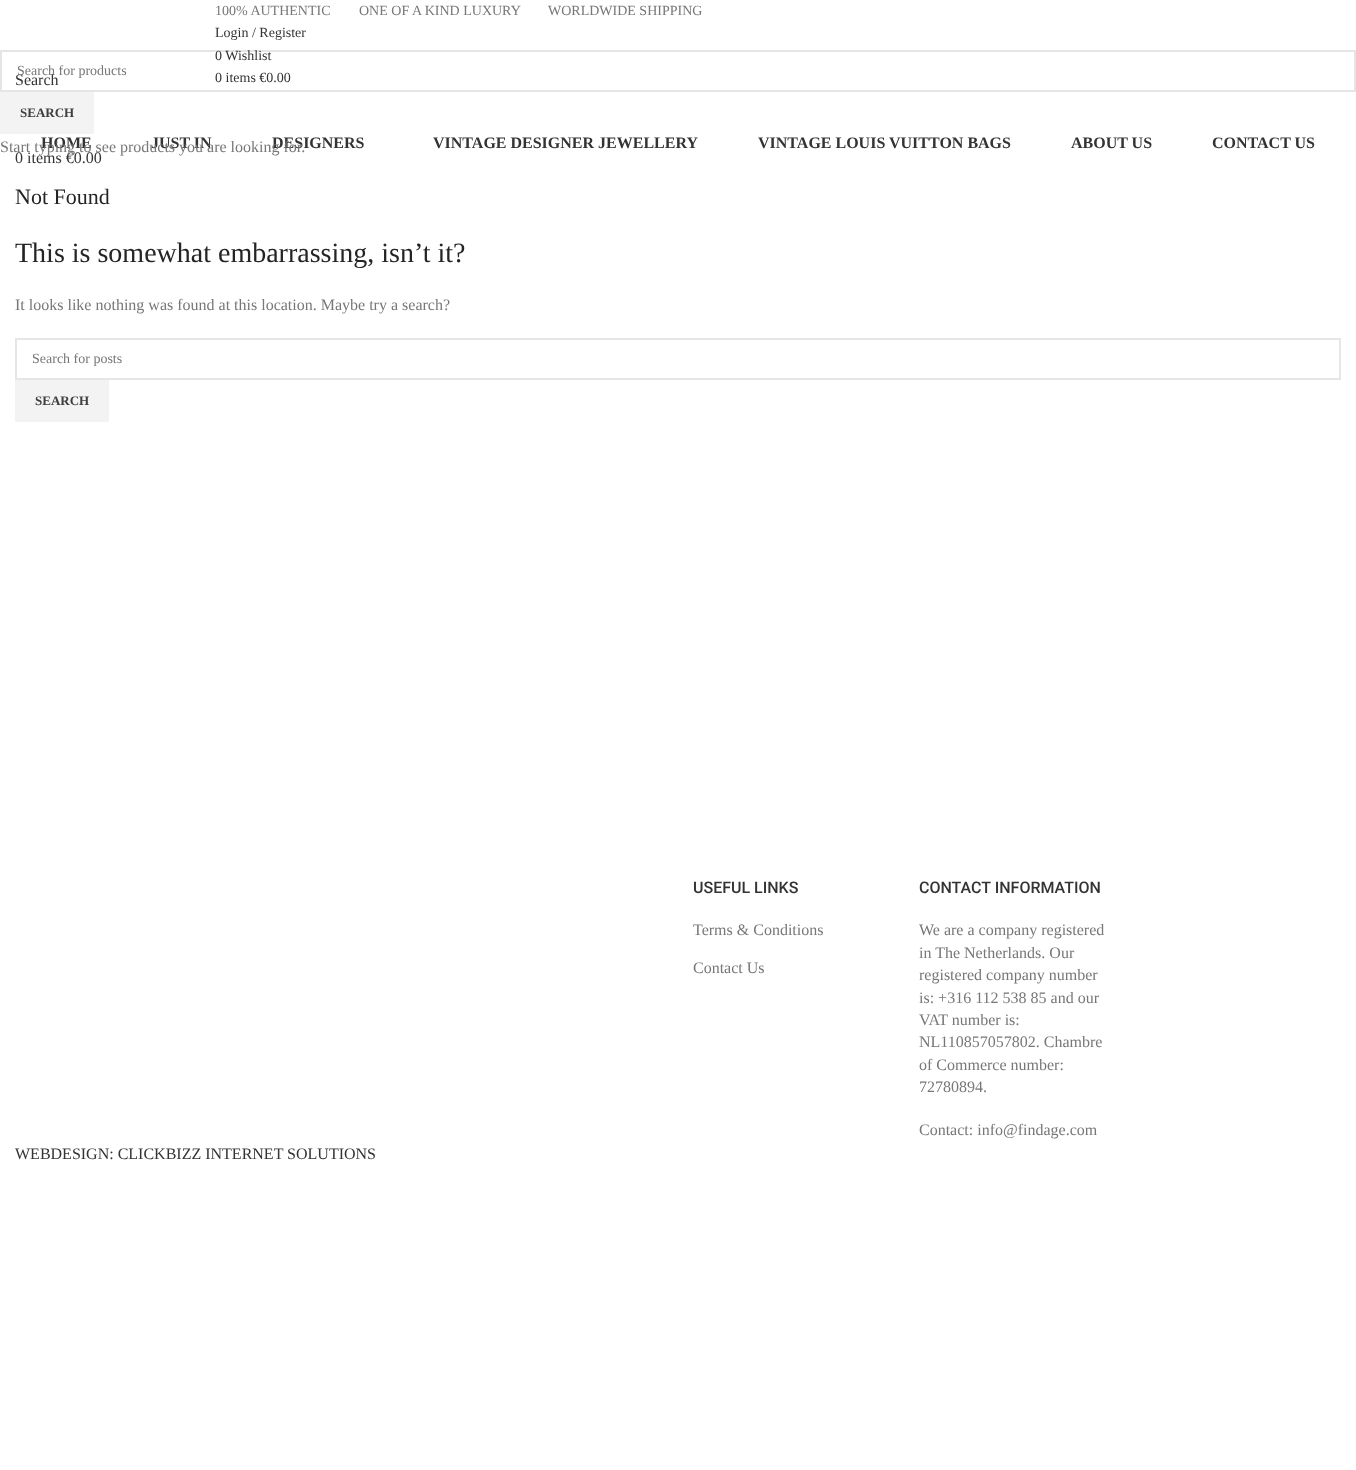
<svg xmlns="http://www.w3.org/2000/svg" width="1356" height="1470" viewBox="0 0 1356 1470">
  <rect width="100%" height="100%" fill="#ffffff"/>
  <text x="215" y="15" font-family="Liberation Serif" font-size="14" fill="#777777">100% AUTHENTIC</text>
  <text x="359" y="15" font-family="Liberation Serif" font-size="14" fill="#777777">ONE OF A KIND LUXURY</text>
  <text x="548" y="15" font-family="Liberation Serif" font-size="14" fill="#777777">WORLDWIDE SHIPPING</text>
  <text x="215" y="37" font-family="Liberation Serif" font-size="14" fill="#333333">Login / Register</text>
  <text x="215" y="60" font-family="Liberation Serif" font-size="14" fill="#333333">0 Wishlist</text>
  <text x="215" y="82" font-family="Liberation Serif" font-size="14" fill="#333333">0 items €0.00</text>
  <text x="15" y="85" font-family="Liberation Serif" font-size="16" fill="#333333">Search</text>
  <text x="15" y="163" font-family="Liberation Serif" font-size="16" fill="#333333">0 items €0.00</text>
  <text x="41" y="148" font-family="Liberation Serif" font-size="16" font-weight="bold" fill="#333333">HOME</text>
  <text x="151" y="148" font-family="Liberation Serif" font-size="16" font-weight="bold" fill="#333333">JUST IN</text>
  <text x="272" y="148" font-family="Liberation Serif" font-size="16" font-weight="bold" fill="#333333">DESIGNERS</text>
  <text x="433" y="148" font-family="Liberation Serif" font-size="16" font-weight="bold" fill="#333333">VINTAGE DESIGNER JEWELLERY</text>
  <text x="758" y="148" font-family="Liberation Serif" font-size="16" font-weight="bold" fill="#333333">VINTAGE LOUIS VUITTON BAGS</text>
  <text x="1071" y="148" font-family="Liberation Serif" font-size="16" font-weight="bold" fill="#333333">ABOUT US</text>
  <text x="1212" y="148" font-family="Liberation Serif" font-size="16" font-weight="bold" fill="#333333">CONTACT US</text>
  <text x="15" y="204" font-family="Liberation Serif" font-size="22" fill="#242424">Not Found</text>
  <text x="15" y="262" font-family="Liberation Serif" font-size="28" fill="#242424">This is somewhat embarrassing, isn’t it?</text>
  <text x="15" y="310" font-family="Liberation Serif" font-size="16" fill="#777777">It looks like nothing was found at this location. Maybe try a search?</text>
  <rect x="16" y="339" width="1324" height="40" fill="none" stroke="#e6e6e6" stroke-width="2"/>
  <text x="32" y="363" font-family="Liberation Serif" font-size="14" fill="#777777">Search for posts</text>
  <rect x="15" y="380" width="94" height="42" fill="#f3f3f3"/>
  <text x="35" y="405" font-family="Liberation Serif" font-size="13" font-weight="bold" fill="#3e3e3e">SEARCH</text>
  <text x="693" y="893" font-family="Roboto" font-size="16" font-weight="500" fill="#333333">USEFUL LINKS</text>
  <text x="693" y="935" font-family="Liberation Serif" font-size="16" fill="#777777">Terms &amp; Conditions</text>
  <text x="693" y="973" font-family="Liberation Serif" font-size="16" fill="#777777">Contact Us</text>
  <text x="919" y="893" font-family="Roboto" font-size="16" font-weight="500" fill="#333333">CONTACT INFORMATION</text>
  <text x="919" y="935" font-family="Liberation Serif" font-size="16" fill="#777777">We are a company registered</text>
  <text x="919" y="958" font-family="Liberation Serif" font-size="16" fill="#777777">in The Netherlands. Our</text>
  <text x="919" y="980" font-family="Liberation Serif" font-size="16" fill="#777777">registered company number</text>
  <text x="919" y="1003" font-family="Liberation Serif" font-size="16" fill="#777777">is: +316 112 538 85 and our</text>
  <text x="919" y="1025" font-family="Liberation Serif" font-size="16" fill="#777777">VAT number is:</text>
  <text x="919" y="1047" font-family="Liberation Serif" font-size="16" fill="#777777">NL110857057802. Chambre</text>
  <text x="919" y="1070" font-family="Liberation Serif" font-size="16" fill="#777777">of Commerce number:</text>
  <text x="919" y="1092" font-family="Liberation Serif" font-size="16" fill="#777777">72780894.</text>
  <text x="919" y="1135" font-family="Liberation Serif" font-size="16" fill="#777777">Contact: info@findage.com</text>
  <text x="15" y="1159" font-family="Liberation Serif" font-size="16" fill="#333333">WEBDESIGN: CLICKBIZZ INTERNET SOLUTIONS</text>
  <rect x="1" y="51" width="1354" height="40" fill="none" stroke="#000000" stroke-opacity="0.1" stroke-width="2"/>
  <text x="17" y="75" font-family="Liberation Serif" font-size="14" fill="#777777">Search for products</text>
  <rect x="0" y="92" width="94" height="42" fill="#f3f3f3"/>
  <text x="20" y="117" font-family="Liberation Serif" font-size="13" font-weight="bold" fill="#3e3e3e">SEARCH</text>
  <text x="0" y="152" font-family="Liberation Serif" font-size="16" fill="#777777">Start typing to see products you are looking for.</text>
</svg>
